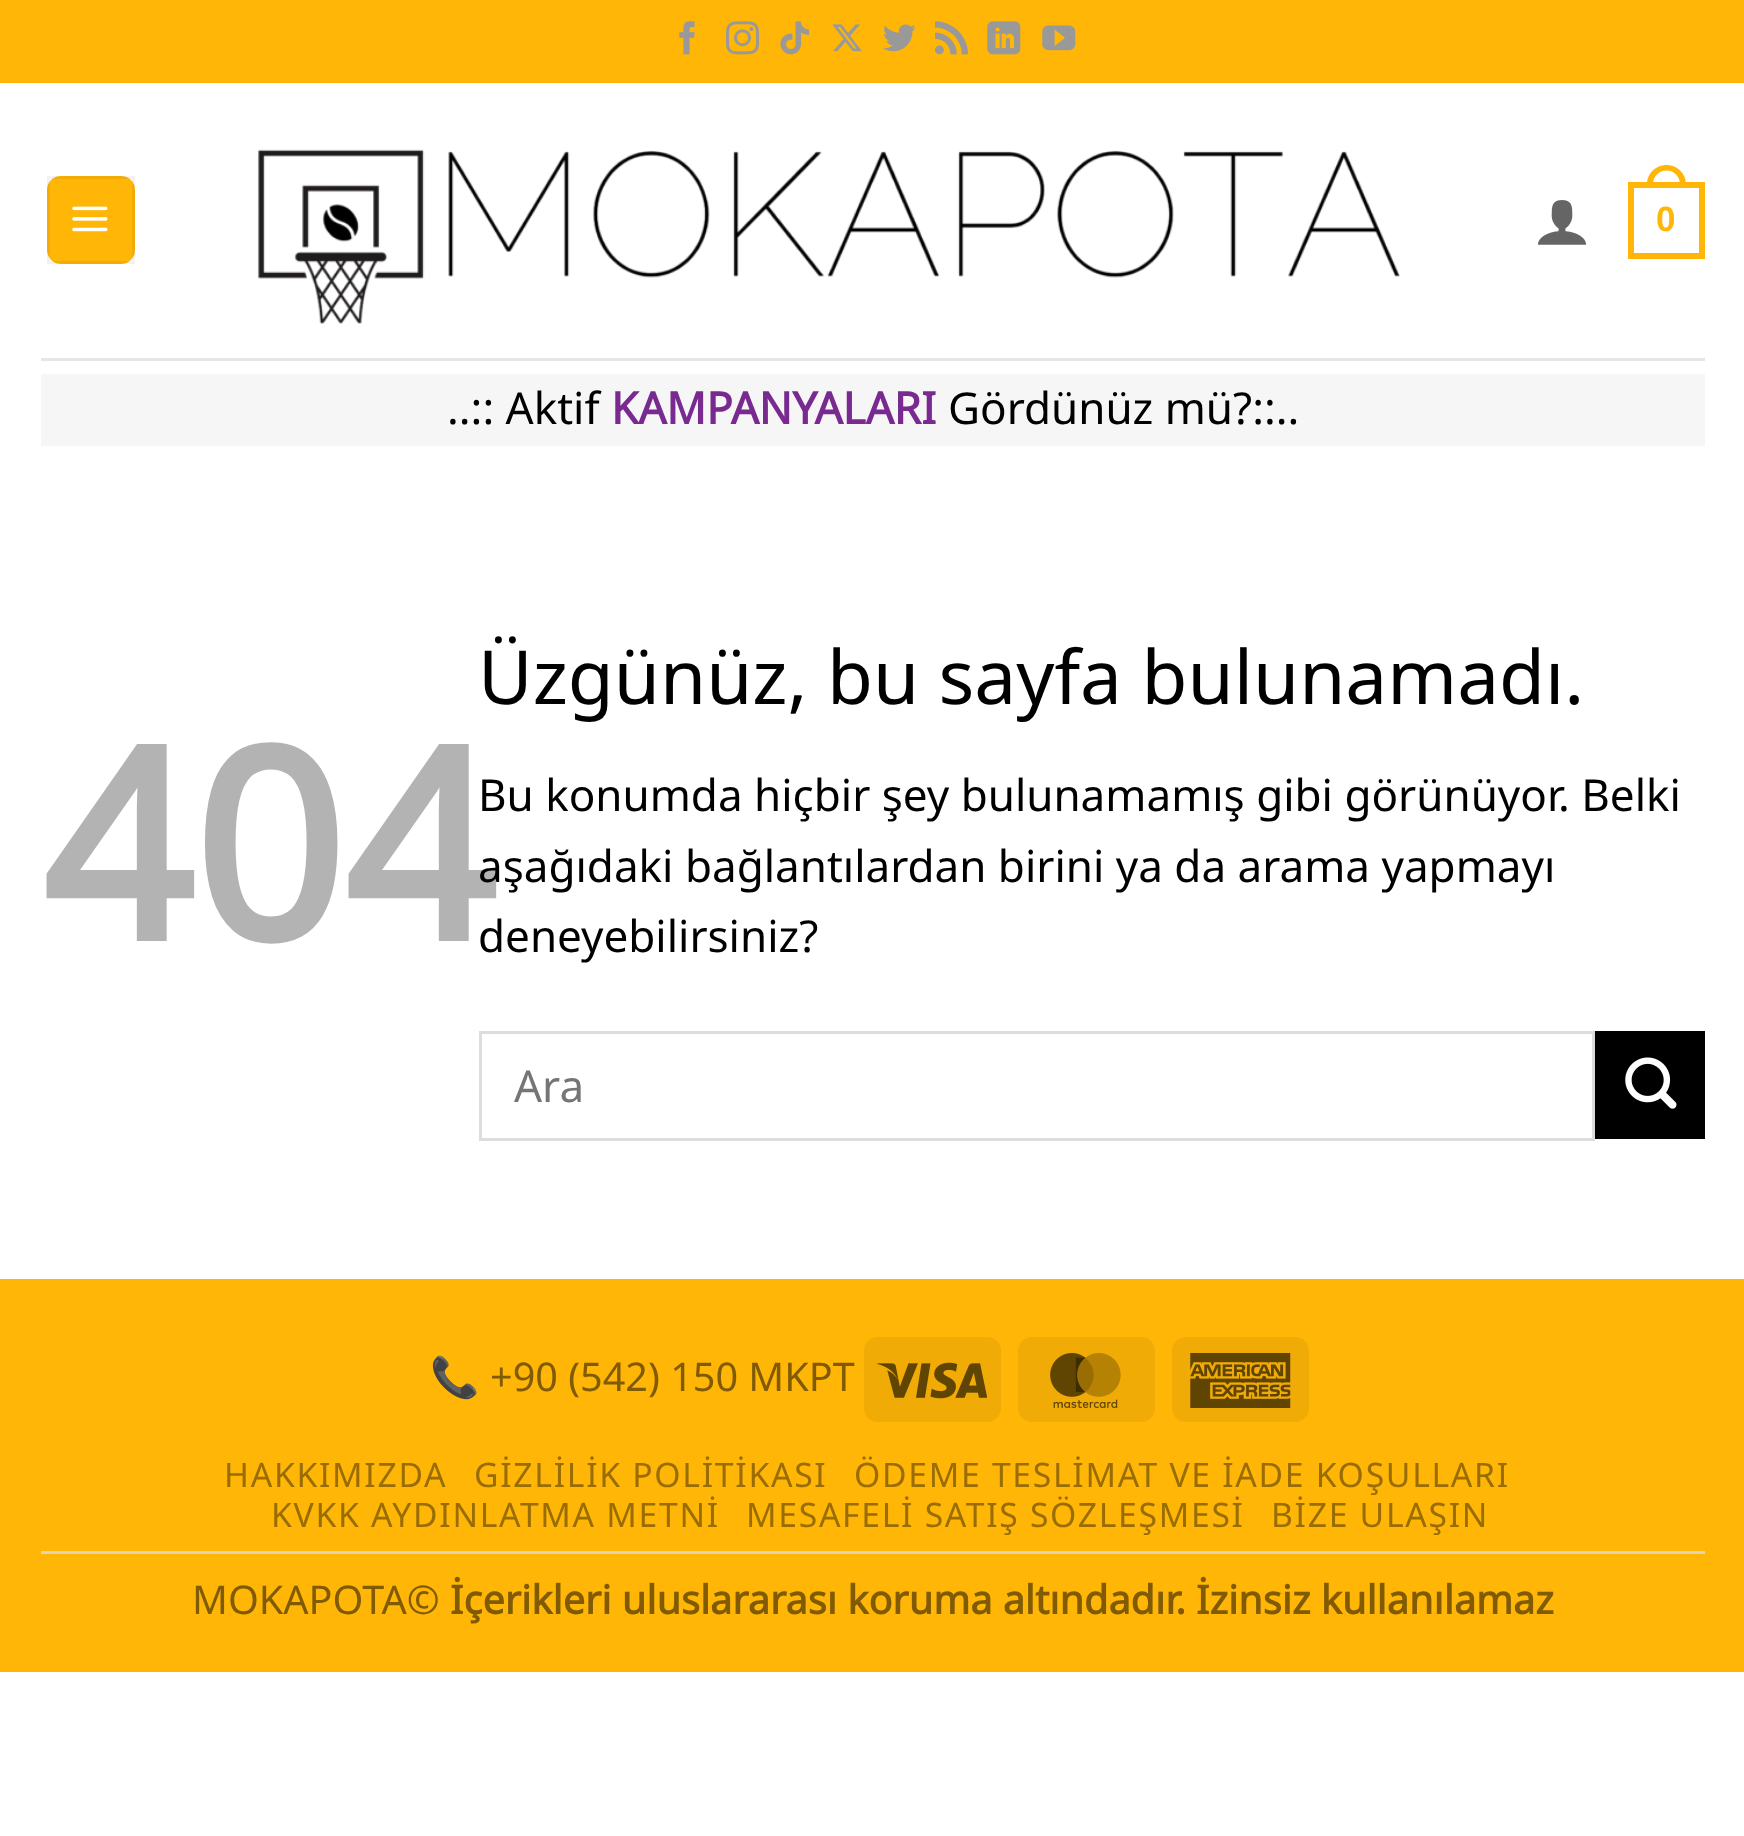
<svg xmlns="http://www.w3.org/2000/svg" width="1744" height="1836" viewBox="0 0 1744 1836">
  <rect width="100%" height="100%" fill="#ffffff"/>
  <rect x="0" y="0" width="1744" height="83" fill="#ffb606"/>
  <image x="679" y="21" width="16" height="34" href="img1.png"/>
  <image x="726" y="21" width="33" height="34" href="img2.png"/>
  <image x="780" y="21" width="30" height="34" href="img3.png"/>
  <image x="832" y="24" width="30" height="28" href="img4.png"/>
  <image x="883" y="24" width="33" height="28" href="img5.png"/>
  <image x="935" y="21" width="33" height="34" href="img6.png"/>
  <image x="987" y="21" width="34" height="34" href="img7.png"/>
  <image x="1042" y="25" width="34" height="26" href="img8.png"/>
  <rect x="47" y="176" width="88" height="88" rx="14" fill="#ffb606"/>
  <rect x="48.5" y="177.5" width="85" height="85" fill="none" stroke="#000000" stroke-opacity="0.05" stroke-width="3"/>
  <image x="72" y="206" width="36" height="26" href="img9.png"/>
  <image x="257" y="149" width="1143" height="175" href="img10.png"/>
  <image x="1537" y="200" width="49" height="45" href="img11.png"/>
  <rect x="1631" y="185" width="71" height="71" fill="none" stroke="#ffb606" stroke-width="6"/>
  <path d="M1666.5 165C1677 165 1686 173.5 1686 184V187H1647V184C1647 173.5 1656 165 1666.5 165ZM1666.5 170.5C1674 170.5 1680 176.5 1680 184V187H1653V184C1653 176.5 1659 170.5 1666.5 170.5Z" fill="#ffb606" fill-rule="evenodd"/>
  <text x="1656" y="231" font-family="Liberation Sans" font-size="35" font-weight="bold" fill="#ffb606">0</text>
  <rect x="41" y="358" width="1664" height="3" fill="#e6e6e6"/>
  <rect x="41" y="374" width="1664" height="72" fill="#f6f6f6"/>
  <text x="447" y="424" font-family="Noto Sans" font-size="44" fill="#000000">..:: Aktif</text>
  <text x="611" y="424" font-family="Noto Sans" font-size="44" font-weight="bold" fill="#782a90">KAMPANYALARI</text>
  <text x="948" y="424" font-family="Noto Sans" font-size="44" fill="#000000">Gördünüz mü?::..</text>
  <text x="41" y="941" font-family="Noto Sans" font-size="264" font-weight="bold" fill="#b3b3b3">404</text>
  <text x="478" y="704" font-family="Noto Sans" font-size="74.75" fill="#000000">Üzgünüz, bu sayfa bulunamadı.</text>
  <text x="478" y="811" font-family="Noto Sans" font-size="44" fill="#000000">Bu konumda hiçbir şey bulunamamış gibi görünüyor. Belki</text>
  <text x="478" y="882" font-family="Noto Sans" font-size="44" fill="#000000">aşağıdaki bağlantılardan birini ya da arama yapmayı</text>
  <text x="478" y="952" font-family="Noto Sans" font-size="44" fill="#000000">deneyebilirsiniz?</text>
  <rect x="480.5" y="1032.5" width="1113" height="107" fill="none" stroke="#dddddd" stroke-width="3"/>
  <text x="514" y="1102" font-family="Noto Sans" font-size="44" fill="#757575">Ara</text>
  <rect x="1595" y="1031" width="110" height="108" fill="#000000"/>
  <image x="1625" y="1057" width="52" height="52" href="img12.png"/>
  <rect x="0" y="1279" width="1744" height="393" fill="#ffb606"/>
  <text x="430" y="1391" font-family="Noto Color Emoji" font-size="39.6" fill="#805b03">📞</text>
  <text x="490" y="1391" font-family="Noto Sans" font-size="39.6" fill="#805b03">+90 (542) 150 MKPT</text>
  <rect x="864" y="1337" width="137" height="85" rx="14" fill="#f0ab06"/>
  <image x="877" y="1362" width="110" height="37" href="img13.png"/>
  <rect x="1018" y="1337" width="137" height="85" rx="14" fill="#f0ab06"/>
  <image x="1050" y="1353" width="71" height="55" href="img14.png"/>
  <rect x="1172" y="1337" width="137" height="85" rx="14" fill="#f0ab06"/>
  <image x="1190" y="1353" width="101" height="55" href="img15.png"/>
  <rect x="41" y="1551" width="1664" height="3" fill="#e4d5b2"/>
  <text x="224" y="1487" font-family="Noto Sans" font-size="33.7" letter-spacing="1.7" fill="#996d04">HAKKIMIZDA</text>
  <text x="474" y="1487" font-family="Noto Sans" font-size="33.7" letter-spacing="1.7" fill="#996d04">GİZLİLİK POLİTİKASI</text>
  <text x="854" y="1487" font-family="Noto Sans" font-size="33.7" letter-spacing="1.7" fill="#996d04">ÖDEME TESLİMAT VE İADE KOŞULLARI</text>
  <text x="271" y="1527" font-family="Noto Sans" font-size="33.7" letter-spacing="1.7" fill="#996d04">KVKK AYDINLATMA METNİ</text>
  <text x="746" y="1527" font-family="Noto Sans" font-size="33.7" letter-spacing="1.7" fill="#996d04">MESAFELİ SATIŞ SÖZLEŞMESİ</text>
  <text x="1271" y="1527" font-family="Noto Sans" font-size="33.7" letter-spacing="1.7" fill="#996d04">BİZE ULAŞIN</text>
  <text x="192" y="1614" font-family="Noto Sans" font-size="39.6" fill="#805b03">MOKAPOTA©</text>
  <text x="450" y="1614" font-family="Noto Sans" font-size="39.6" font-weight="bold" fill="#805b03">İçerikleri uluslararası koruma altındadır. İzinsiz kullanılamaz</text>
</svg>
